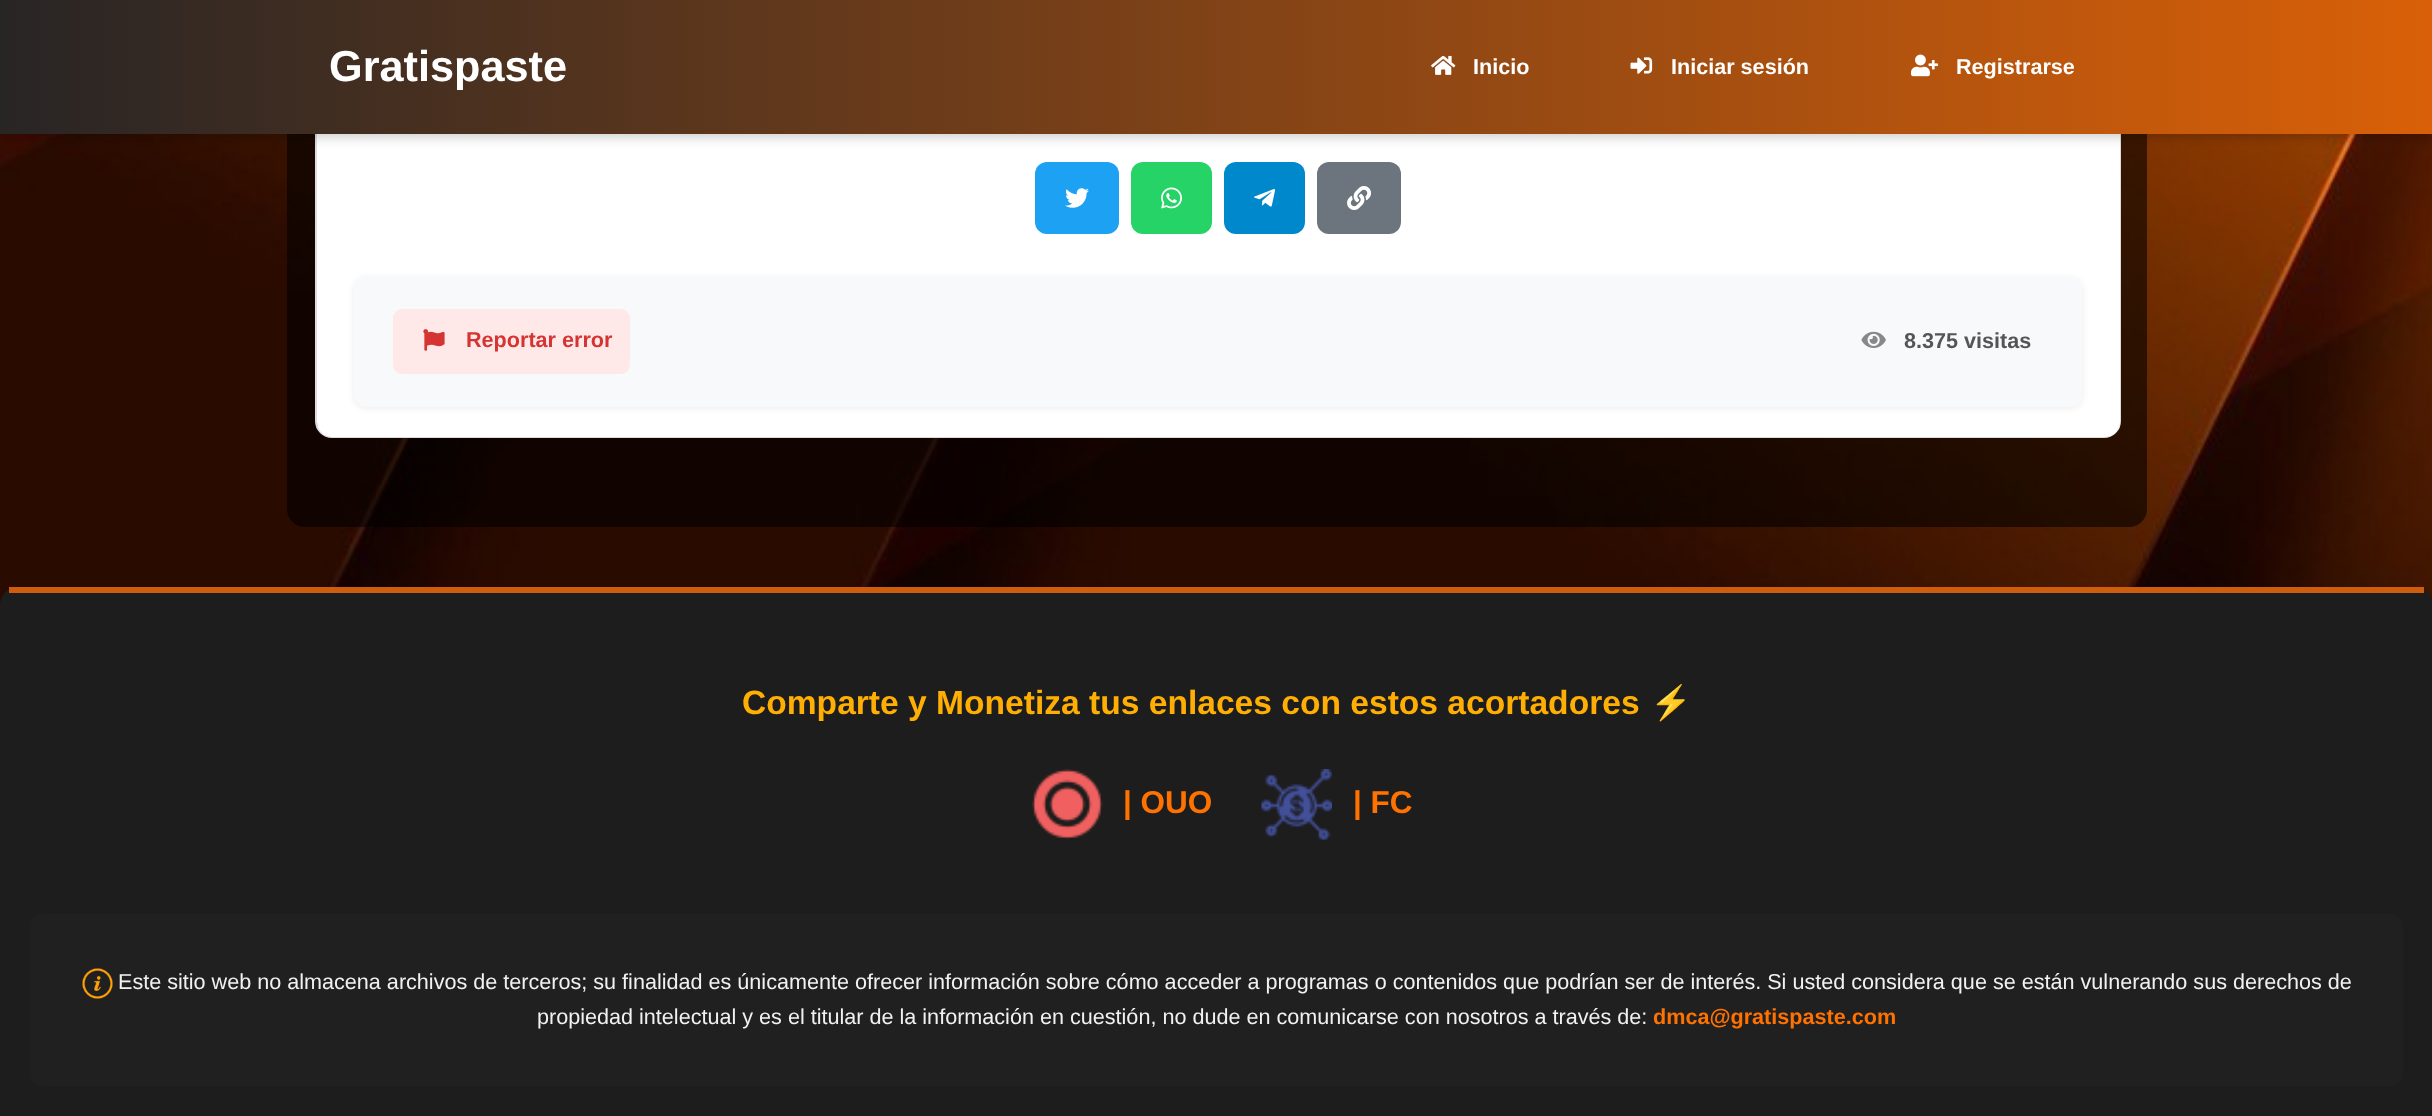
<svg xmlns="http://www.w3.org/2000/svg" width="2432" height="1116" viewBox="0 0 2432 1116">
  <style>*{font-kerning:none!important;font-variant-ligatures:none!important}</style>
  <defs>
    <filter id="blur1" x="-50%" y="-200%" width="200%" height="500%"><feGaussianBlur stdDeviation="6"/></filter>
    <linearGradient id="g1" gradientUnits="userSpaceOnUse" x1="0" y1="67" x2="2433" y2="67"><stop offset="0" stop-color="#282525"/><stop offset="1" stop-color="#d96008"/></linearGradient>
    <filter id="blur2" x="-50%" y="-200%" width="200%" height="500%"><feGaussianBlur stdDeviation="3"/></filter>
  </defs>
  <rect width="100%" height="100%" fill="#ffffff"/>
  <image x="0" y="134" width="2432" height="471" href="img1.png"/>
  <rect x="287" y="-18" width="1860" height="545" rx="18" fill="#000000" fill-opacity="0.57"/>
  <rect x="316" y="-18" width="1804" height="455" rx="16" fill="none" stroke="#dddddd" stroke-width="2"/>
  <rect x="317" y="-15" width="1803" height="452" rx="15" fill="#ffffff"/>
  <rect x="0" y="3" width="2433" height="134" fill="#000000" fill-opacity="0.2" filter="url(#blur1)"/>
  <rect x="0" y="0" width="2432" height="134" fill="url(#g1)"/>
  <text x="329" y="81" font-family="Liberation Sans" font-size="43.25" font-weight="bold" fill="#ffffff">Gratispaste</text>
  <image x="1431" y="55" width="25" height="20" href="img2.png"/>
  <text x="1473" y="74" font-family="Liberation Sans" font-size="21.6" font-weight="bold" fill="#ffffff">Inicio</text>
  <image x="1630" y="57" width="23" height="17" href="img3.png"/>
  <text x="1671" y="74" font-family="Liberation Sans" font-size="21.6" font-weight="bold" fill="#ffffff">Iniciar sesión</text>
  <image x="1911" y="54" width="27" height="23" href="img4.png"/>
  <text x="1956" y="74" font-family="Liberation Sans" font-size="21.6" font-weight="bold" fill="#ffffff">Registrarse</text>
  <rect x="1035" y="162" width="84" height="72" rx="12" fill="#1da1f2"/>
  <image x="1065" y="188" width="24" height="20" href="img5.png"/>
  <rect x="1131" y="162" width="81" height="72" rx="12" fill="#25d366"/>
  <image x="1161" y="187" width="21" height="22" href="img6.png"/>
  <rect x="1224" y="162" width="81" height="72" rx="12" fill="#0088cc"/>
  <image x="1254" y="189" width="21" height="18" href="img7.png"/>
  <rect x="1317" y="162" width="84" height="72" rx="12" fill="#6c757d"/>
  <image x="1347" y="186" width="24" height="24" href="img8.png"/>
  <rect x="354" y="278" width="1728" height="130" rx="12" fill="#000000" fill-opacity="0.08" filter="url(#blur2)"/>
  <rect x="354" y="276" width="1728" height="131" rx="12" fill="#f8f9fa"/>
  <rect x="393" y="309" width="237" height="65" rx="9" fill="#ffe8e8"/>
  <image x="423" y="329" width="22" height="22" href="img9.png"/>
  <text x="466" y="347" font-family="Liberation Sans" font-size="21.6" font-weight="bold" fill="#d63333">Reportar error</text>
  <image x="1861" y="331" width="25" height="17" href="img10.png"/>
  <text x="1904" y="348" font-family="Liberation Sans" font-size="21.6" font-weight="bold" fill="#555555">8.375 visitas</text>
  <path d="M18 587H2415C2425 587 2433 595 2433 605V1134H0V605C0 595 8 587 18 587Z" fill="#1e1d1d"/>
  <rect x="9" y="587" width="2415" height="6" fill="#ce5e0d"/>
  <text x="742" y="714" font-family="Liberation Sans" font-size="33.6" font-weight="bold" fill="#ffaf03">Comparte y Monetiza tus enlaces con estos acortadores</text>
  <text x="1650" y="714" font-family="Noto Color Emoji" font-size="33.6" font-weight="bold" fill="#ffaf03">⚡</text>
  <image x="1032" y="769" width="71" height="71" href="img11.png"/>
  <text x="1123" y="813" font-family="Liberation Sans" font-size="31.5" font-weight="bold" fill="#ff7200">| OUO</text>
  <image x="1261" y="769" width="71" height="71" href="img12.png"/>
  <text x="1353" y="813" font-family="Liberation Sans" font-size="31.5" font-weight="bold" fill="#ff7200">| FC</text>
  <rect x="30" y="914" width="2373" height="172" rx="12" fill="#212020"/>
  <image x="82" y="968" width="31" height="31" href="img13.png"/>
  <text x="118" y="989" font-family="Liberation Sans" font-size="21.6" fill="#f1f1f1">Este sitio web no almacena archivos de terceros; su finalidad es únicamente ofrecer información sobre cómo acceder a programas o contenidos que podrían ser de interés. Si usted considera que se están vulnerando sus derechos de</text>
  <text x="537" y="1024" font-family="Liberation Sans" font-size="21.6" fill="#f1f1f1">propiedad intelectual y es el titular de la información en cuestión, no dude en comunicarse con nosotros a través de:</text>
  <text x="1653" y="1024" font-family="Liberation Sans" font-size="21.6" font-weight="bold" fill="#ff7200">dmca@gratispaste.com</text>
</svg>
